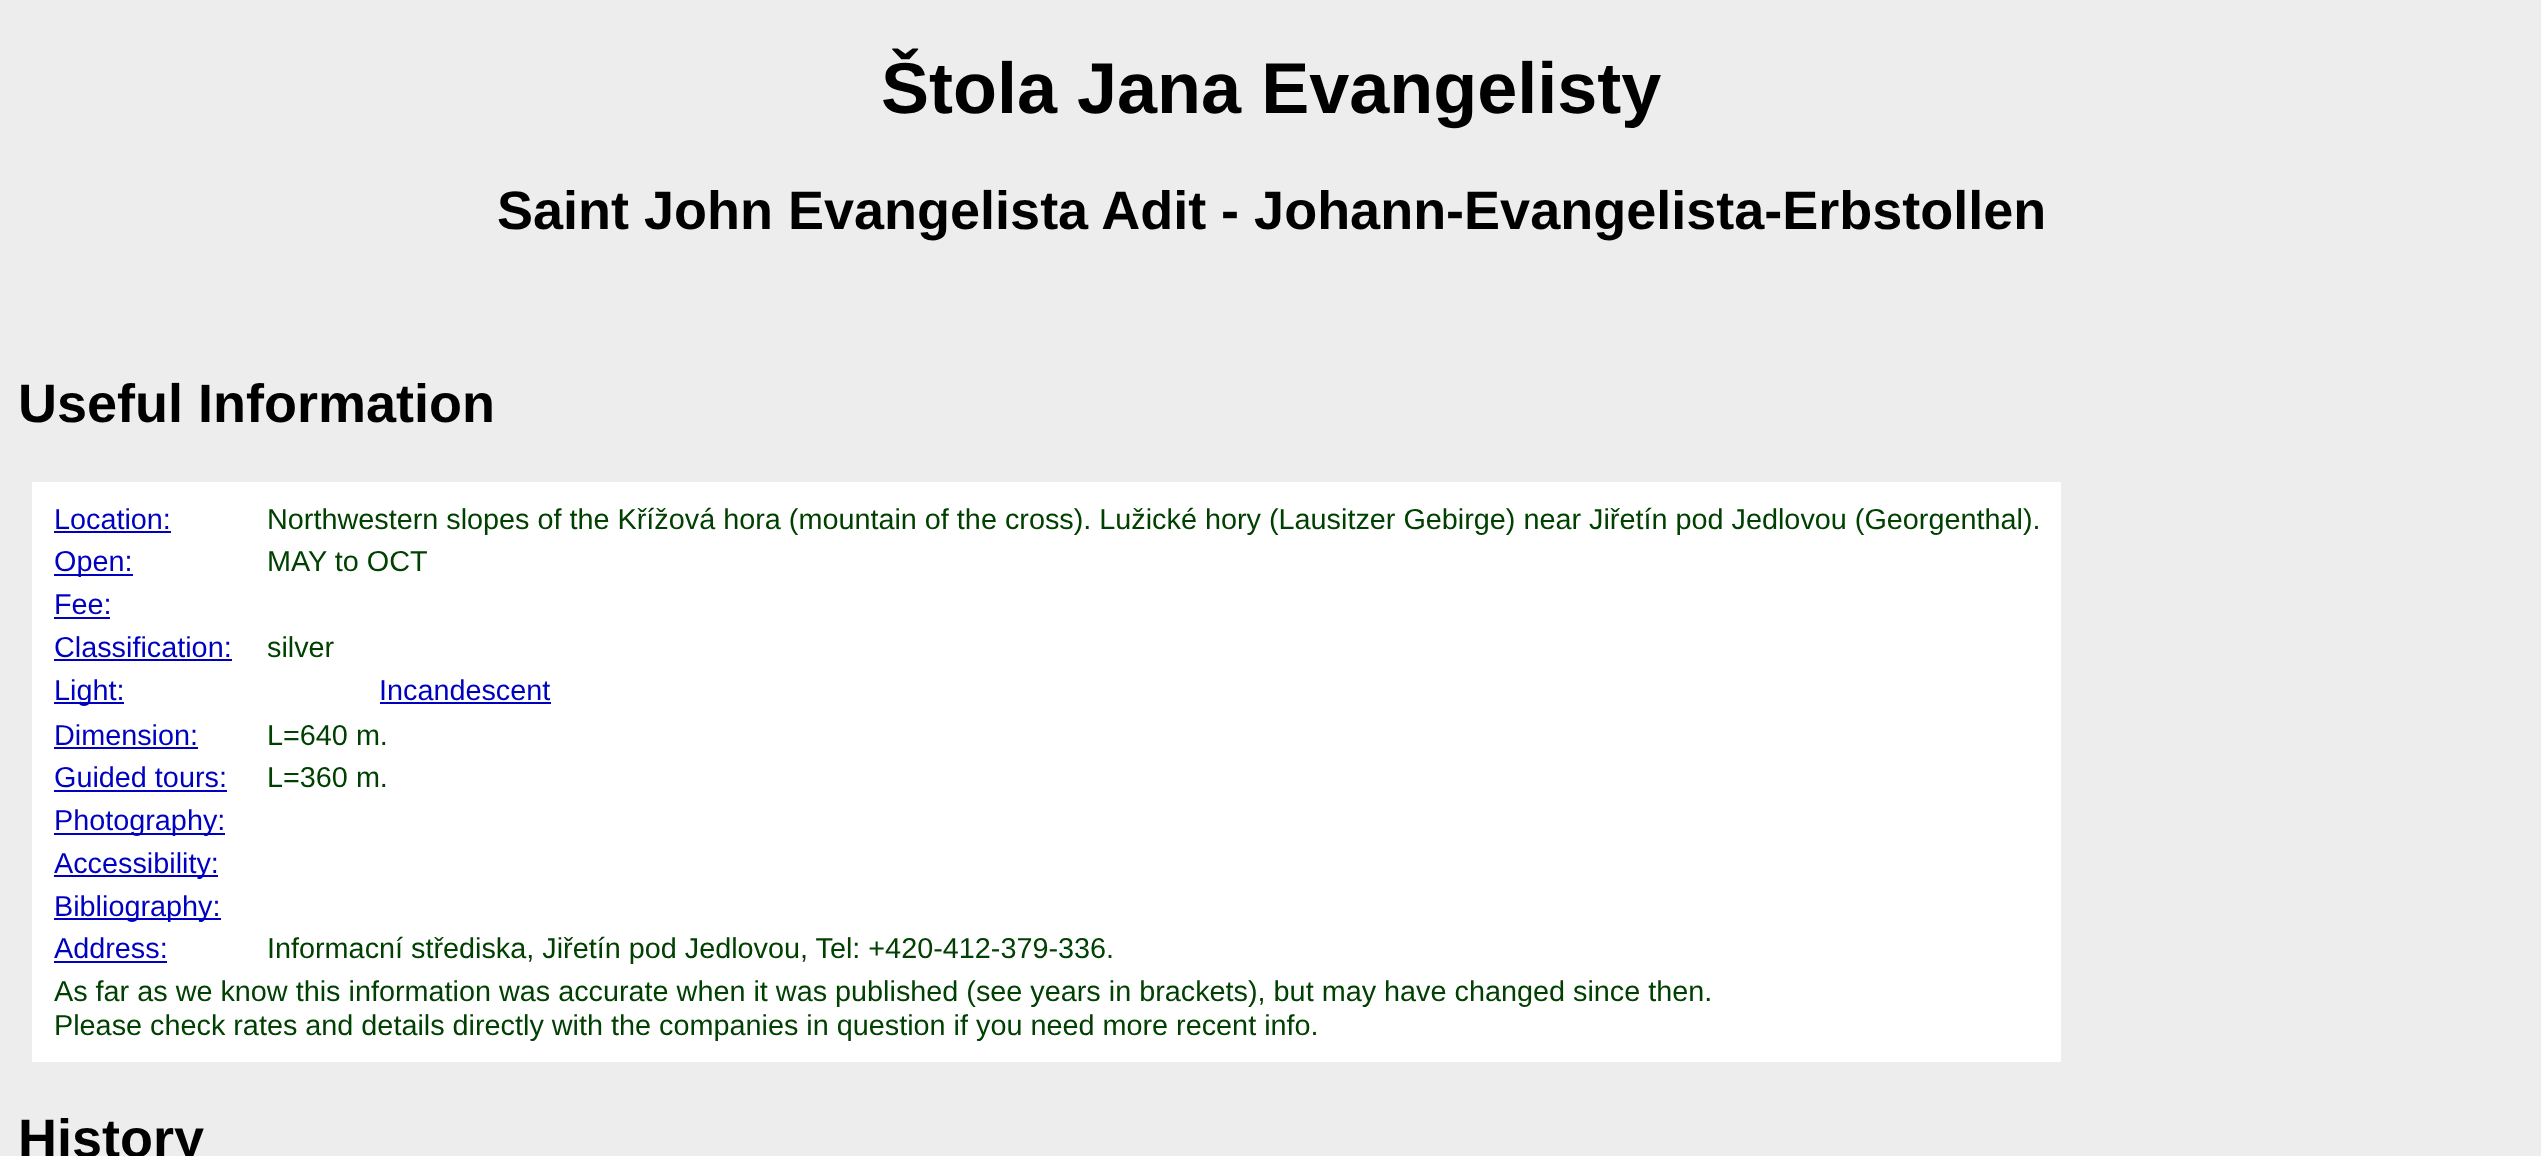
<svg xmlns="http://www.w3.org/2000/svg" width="2541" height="1156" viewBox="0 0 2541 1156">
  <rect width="100%" height="100%" fill="#ededed"/>
  <text x="881" y="113" font-family="Liberation Sans" font-size="72" font-weight="bold" fill="#000000">Štola Jana Evangelisty</text>
  <text x="497" y="229" font-family="Liberation Sans" font-size="54" font-weight="bold" fill="#000000">Saint John Evangelista Adit - Johann-Evangelista-Erbstollen</text>
  <text x="18" y="422" font-family="Liberation Sans" font-size="54" font-weight="bold" fill="#000000">Useful Information</text>
  <rect x="32" y="482" width="2029" height="580" fill="#ffffff"/>
  <text x="54" y="529" font-family="Liberation Sans" font-size="28.8" fill="#0000c0">Location:</text>
  <rect x="54" y="531" width="117" height="2" fill="#0000c0"/>
  <text x="267" y="529" font-family="Liberation Sans" font-size="28.8" fill="#004000">Northwestern slopes of the Křížová hora (mountain of the cross). Lužické hory (Lausitzer Gebirge) near Jiřetín pod Jedlovou (Georgenthal).</text>
  <rect x="54" y="574" width="79" height="2" fill="#0000c0"/>
  <text x="54" y="571" font-family="Liberation Sans" font-size="28.8" fill="#0000c0">Open:</text>
  <text x="267" y="571" font-family="Liberation Sans" font-size="28.8" fill="#004000">MAY to OCT</text>
  <text x="54" y="614" font-family="Liberation Sans" font-size="28.8" fill="#0000c0">Fee:</text>
  <rect x="54" y="617" width="56" height="2" fill="#0000c0"/>
  <text x="54" y="657" font-family="Liberation Sans" font-size="28.8" fill="#0000c0">Classification:</text>
  <rect x="54" y="659" width="178" height="2" fill="#0000c0"/>
  <text x="267" y="657" font-family="Liberation Sans" font-size="28.8" fill="#004000">silver</text>
  <rect x="54" y="702" width="70" height="2" fill="#0000c0"/>
  <text x="54" y="700" font-family="Liberation Sans" font-size="28.8" fill="#0000c0">Light:</text>
  <text x="379" y="700" font-family="Liberation Sans" font-size="28.8" fill="#0000c0">Incandescent</text>
  <rect x="380" y="702" width="171" height="2" fill="#0000c0"/>
  <text x="54" y="745" font-family="Liberation Sans" font-size="28.8" fill="#0000c0">Dimension:</text>
  <rect x="54" y="747" width="144" height="2" fill="#0000c0"/>
  <text x="267" y="745" font-family="Liberation Sans" font-size="28.8" fill="#004000">L=640 m.</text>
  <text x="54" y="787" font-family="Liberation Sans" font-size="28.8" fill="#0000c0">Guided tours:</text>
  <rect x="54" y="790" width="173" height="2" fill="#0000c0"/>
  <text x="267" y="787" font-family="Liberation Sans" font-size="28.8" fill="#004000">L=360 m.</text>
  <rect x="54" y="833" width="171" height="2" fill="#0000c0"/>
  <text x="54" y="830" font-family="Liberation Sans" font-size="28.8" fill="#0000c0">Photography:</text>
  <rect x="54" y="875" width="164" height="2" fill="#0000c0"/>
  <text x="54" y="873" font-family="Liberation Sans" font-size="28.8" fill="#0000c0">Accessibility:</text>
  <rect x="54" y="918" width="167" height="2" fill="#0000c0"/>
  <text x="54" y="916" font-family="Liberation Sans" font-size="28.8" fill="#0000c0">Bibliography:</text>
  <text x="54" y="958" font-family="Liberation Sans" font-size="28.8" fill="#0000c0">Address:</text>
  <rect x="54" y="961" width="113" height="2" fill="#0000c0"/>
  <text x="267" y="958" font-family="Liberation Sans" font-size="28.8" fill="#004000">Informacní střediska, Jiřetín pod Jedlovou, Tel: +420-412-379-336.</text>
  <text x="54" y="1001" font-family="Liberation Sans" font-size="28.8" fill="#004000">As far as we know this information was accurate when it was published (see years in brackets), but may have changed since then.</text>
  <text x="54" y="1035" font-family="Liberation Sans" font-size="28.8" fill="#004000">Please check rates and details directly with the companies in question if you need more recent info.</text>
  <text x="18" y="1157" font-family="Liberation Sans" font-size="54" font-weight="bold" fill="#000000">History</text>
</svg>
